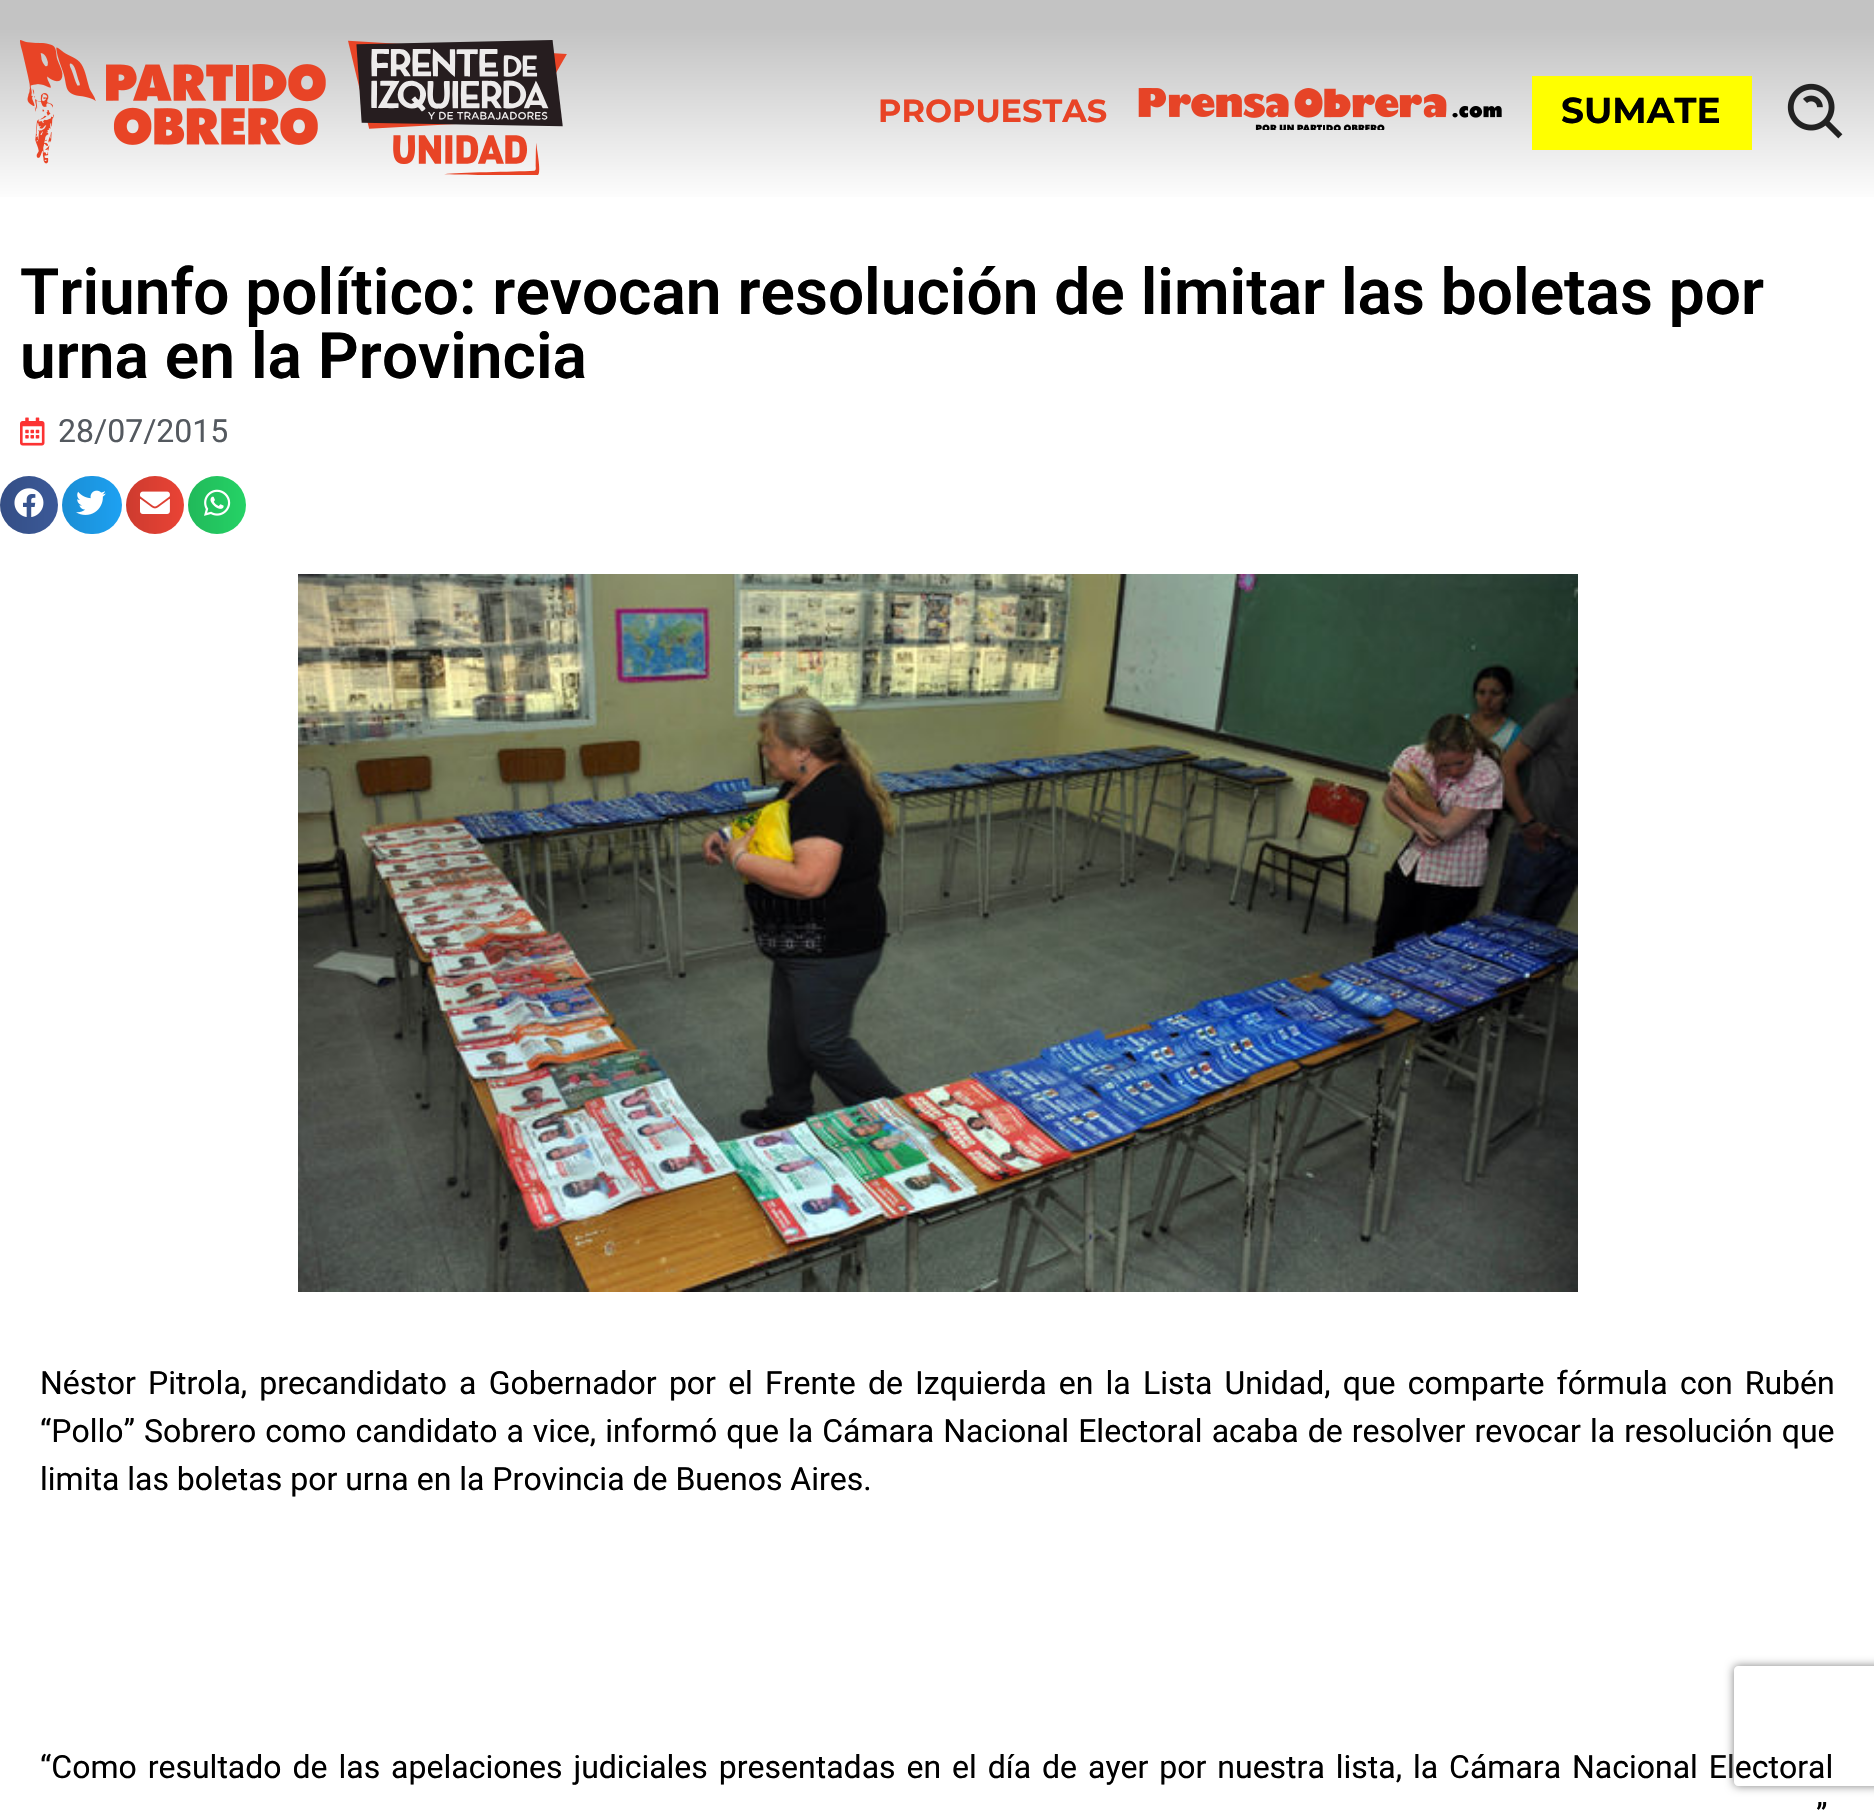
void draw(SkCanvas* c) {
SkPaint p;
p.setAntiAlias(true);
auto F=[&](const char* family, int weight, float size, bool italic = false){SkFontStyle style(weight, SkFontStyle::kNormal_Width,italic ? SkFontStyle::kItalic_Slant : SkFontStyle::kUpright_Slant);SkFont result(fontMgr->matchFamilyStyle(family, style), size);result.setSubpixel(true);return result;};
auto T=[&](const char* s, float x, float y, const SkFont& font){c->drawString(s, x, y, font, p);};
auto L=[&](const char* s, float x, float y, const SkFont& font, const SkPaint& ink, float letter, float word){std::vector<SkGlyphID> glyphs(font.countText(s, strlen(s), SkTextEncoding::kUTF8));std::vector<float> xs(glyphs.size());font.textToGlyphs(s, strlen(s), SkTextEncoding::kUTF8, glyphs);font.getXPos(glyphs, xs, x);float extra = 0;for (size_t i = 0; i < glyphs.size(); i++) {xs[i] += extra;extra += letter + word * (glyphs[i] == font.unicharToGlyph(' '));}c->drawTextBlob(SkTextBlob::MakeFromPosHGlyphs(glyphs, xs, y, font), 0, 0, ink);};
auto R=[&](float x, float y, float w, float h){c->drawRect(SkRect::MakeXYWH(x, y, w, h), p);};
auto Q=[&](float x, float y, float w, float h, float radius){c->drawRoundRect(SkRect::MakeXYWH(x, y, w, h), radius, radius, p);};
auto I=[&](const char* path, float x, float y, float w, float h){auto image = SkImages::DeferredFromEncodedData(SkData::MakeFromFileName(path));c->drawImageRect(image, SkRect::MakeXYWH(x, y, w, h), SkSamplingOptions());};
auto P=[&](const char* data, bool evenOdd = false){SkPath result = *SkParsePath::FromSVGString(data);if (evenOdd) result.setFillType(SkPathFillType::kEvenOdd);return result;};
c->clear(0xffffffff);
{
const SkColor colors[] = {0xffc3c3c3,0xffffffff};
const float stops[] = {.14,1};
const SkPoint ends[] = {{937,0}, {937,204}};
p.setShader(SkGradientShader::MakeLinear(ends, colors, stops, 2, SkTileMode::kClamp));
p.setAlpha(255);
}
R(0,0,1874,197);
I("1.png",20,40,76,124);
I("2.png",106,64,220,81);
I("3.png",348,40,219,135);
auto f1 = F("Montserrat",100,32);
p.setShader(nullptr);
p.setColor(0xffe84426);
T("PROPUESTAS",878,122,f1);
I("4.png",1138,88,364,42);
p.setColor(0xffffff00);
R(1532,76,220,74);
auto f2 = F("Montserrat",100,36);
p.setColor(0xff000000);
T("SUMATE",1561,123,f2);
I("5.png",1787,83,56,56);
auto f3 = F("Roboto",600,64);
T("Triunfo político: revocan resolución de limitar las boletas por",20,314,f3);
T("urna en la Provincia",20,378,f3);
I("6.png",20,417,25,29);
auto f4 = F("Roboto",400,32);
p.setColor(0xff54595f);
T("28/07/2015",58,442,f4);
p.setColor(0xff3b5998);
c->drawCircle(29,505,29,p);
{
const SkColor colors[] = {0x1f000000,0x00000000};
const float stops[] = {0,1};
const SkPoint ends[] = {{0,505}, {58,505}};
p.setShader(SkGradientShader::MakeLinear(ends, colors, stops, 2, SkTileMode::kClamp));
p.setAlpha(255);
}
c->drawCircle(29,505,29,p);
I("7.png",14,488,30,29);
p.setShader(nullptr);
p.setColor(0xff1da1f2);
Q(62,476,60,58,29);
{
const SkColor colors[] = {0x1f000000,0x00000000};
const float stops[] = {0,1};
const SkPoint ends[] = {{62,505}, {122,505}};
p.setShader(SkGradientShader::MakeLinear(ends, colors, stops, 2, SkTileMode::kClamp));
p.setAlpha(255);
}
Q(62,476,60,58,29);
I("8.png",76,490,30,25);
p.setShader(nullptr);
p.setColor(0xffea4335);
c->drawCircle(155,505,29,p);
{
const SkColor colors[] = {0x1f000000,0x00000000};
const float stops[] = {0,1};
const SkPoint ends[] = {{126,505}, {184,505}};
p.setShader(SkGradientShader::MakeLinear(ends, colors, stops, 2, SkTileMode::kClamp));
p.setAlpha(255);
}
c->drawCircle(155,505,29,p);
I("9.png",140,491,30,23);
p.setShader(nullptr);
p.setColor(0xff25d366);
c->drawCircle(217,505,29,p);
{
const SkColor colors[] = {0x1f000000,0x00000000};
const float stops[] = {0,1};
const SkPoint ends[] = {{188,505}, {246,505}};
p.setShader(SkGradientShader::MakeLinear(ends, colors, stops, 2, SkTileMode::kClamp));
p.setAlpha(255);
}
c->drawCircle(217,505,29,p);
I("10.png",204,489,27,27);
I("11.png",298,574,1280,718);
p.setShader(nullptr);
p.setColor(0xff000000);
L("Néstor Pitrola, precandidato a Gobernador por el Frente de Izquierda en la Lista Unidad, que comparte fórmula con Rubén",40,1394,f4,p,0,4.25);
L("“Pollo” Sobrero como candidato a vice, informó que la Cámara Nacional Electoral acaba de resolver revocar la resolución que",40,1442,f4,p,0,1.1);
T("limita las boletas por urna en la Provincia de Buenos Aires.",40,1490,f4);
L("“Como resultado de las apelaciones judiciales presentadas en el día de ayer por nuestra lista, la Cámara Nacional Electoral",40,1778,f4,p,0,3);
L("”",1816,1826,f4,p,0,1);
c->save();
c->clipPath(P("M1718 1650h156v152h-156zm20 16h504c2 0 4 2 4 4v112c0 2-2 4-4 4h-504c-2 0-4-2-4-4v-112c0-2 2-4 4-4z",true),true);
p.setColor(0xff808080);
p.setMaskFilter(SkMaskFilter::MakeBlur(kNormal_SkBlurStyle, 5));
c->drawRoundRect(SkRect::MakeXYWH(1734,1666,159,120),4,4,p);
p.setMaskFilter(nullptr);
c->restore();
}
